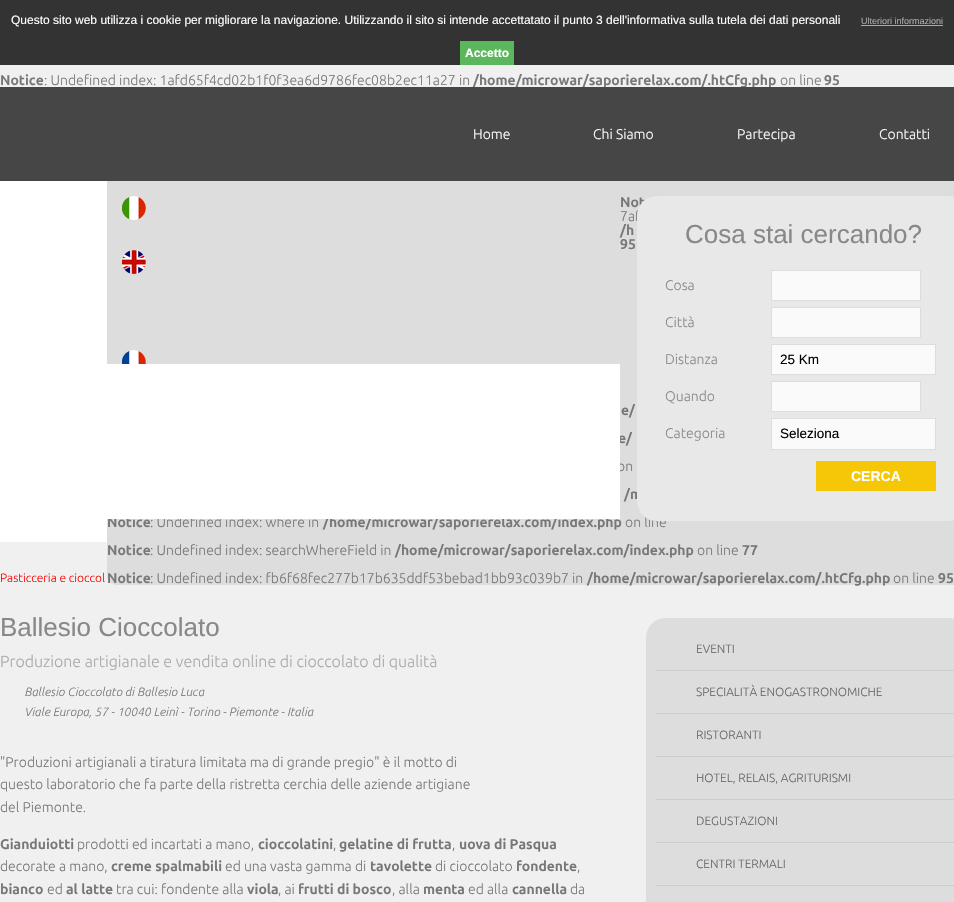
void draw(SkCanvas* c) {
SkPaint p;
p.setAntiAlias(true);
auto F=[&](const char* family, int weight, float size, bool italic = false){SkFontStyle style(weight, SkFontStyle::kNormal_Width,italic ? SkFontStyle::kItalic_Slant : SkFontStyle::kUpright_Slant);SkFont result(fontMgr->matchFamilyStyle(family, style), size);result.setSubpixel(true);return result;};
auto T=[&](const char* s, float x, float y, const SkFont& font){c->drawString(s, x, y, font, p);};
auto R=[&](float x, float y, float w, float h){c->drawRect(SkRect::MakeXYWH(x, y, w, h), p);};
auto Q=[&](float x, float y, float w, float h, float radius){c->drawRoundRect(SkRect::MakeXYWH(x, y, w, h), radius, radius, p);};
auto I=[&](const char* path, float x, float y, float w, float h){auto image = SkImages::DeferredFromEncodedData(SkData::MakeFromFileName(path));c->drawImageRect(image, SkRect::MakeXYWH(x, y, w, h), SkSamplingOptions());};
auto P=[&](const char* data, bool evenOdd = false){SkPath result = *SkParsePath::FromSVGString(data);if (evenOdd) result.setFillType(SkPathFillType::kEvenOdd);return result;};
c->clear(0xfff0f0f0);
p.setColor(0xff333333);
R(0,0,954,65);
auto f1 = F("Liberation Sans",400,12);
p.setColor(0xffffffff);
T("Questo sito web utilizza i cookie per migliorare la navigazione. Utilizzando il sito si intende accettatato il punto 3 dell'informativa sulla tutela dei dati personali",11,24,f1);
auto f2 = F("Liberation Sans",400,9);
p.setColor(0xffaaaaaa);
T("Ulteriori informazioni",861,24,f2);
R(861,25,82,1);
p.setColor(0xff5bb75b);
R(460,41,54,24);
auto f3 = F("Liberation Sans",700,12);
p.setColor(0xffffffff);
T("Accetto",465,57,f3);
auto f4 = F("Ubuntu",700,14);
p.setColor(0xff777777);
T("Notice",0,85,f4);
auto f5 = F("Ubuntu",300,14);
T(": Undefined index: 1afd65f4cd02b1f0f3ea6d9786fec08b2ec11a27 in",44,85,f5);
T("/home/microwar/saporierelax.com/.htCfg.php",473,85,f4);
T("on line",780,85,f5);
T("95",824,85,f4);
p.setColor(0xffffffff);
R(0,181,107,361);
p.setColor(0xff464646);
R(0,87,954,94);
p.setColor(0xffffffff);
T("Home",473,139,f5);
T("Chi Siamo",593,139,f5);
T("Partecipa",737,139,f5);
T("Contatti",879,139,f5);
p.setColor(0xffdddddd);
c->drawPath(P("M107 181h847v404h-837c-5.5 0-10-4.5-10-10z"),p);
p.setColor(0xff777777);
T("Not",620,207,f4);
T("7af",620,221,f5);
T("/h",620,235,f4);
T("/m",624,499,f4);
T("on line",625,527,f5);
p.setColor(0xffe9e8e8);
Q(637,196,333,325,20);
auto f6 = F("Liberation Sans",400,26);
p.setColor(0xff888888);
T("Cosa stai cercando?",685,243,f6);
T("Cosa",665,290,f5);
p.setColor(0xfffafafa);
c->drawRect(SkRect::MakeXYWH(771.5,270.5,149,30),p);
p.setStroke(true);
p.setStrokeWidth(1);
p.setColor(0xffdddddd);
c->drawRect(SkRect::MakeXYWH(771.5,270.5,149,30),p);
p.setStroke(false);
p.setColor(0xff888888);
T("Città",665,327,f5);
p.setColor(0xfffafafa);
c->drawRect(SkRect::MakeXYWH(771.5,307.5,149,30),p);
p.setStroke(true);
p.setColor(0xffdddddd);
c->drawRect(SkRect::MakeXYWH(771.5,307.5,149,30),p);
p.setStroke(false);
p.setColor(0xff888888);
T("Distanza",665,364,f5);
p.setColor(0xfffafafa);
c->drawRect(SkRect::MakeXYWH(771.5,344.5,164,30),p);
p.setStroke(true);
p.setColor(0xffdddddd);
c->drawRect(SkRect::MakeXYWH(771.5,344.5,164,30),p);
auto f7 = F("Liberation Sans",400,13.5);
p.setStroke(false);
p.setColor(0xff000000);
T("25 Km",780,364,f7);
p.setColor(0xff888888);
T("Quando",665,401,f5);
p.setColor(0xfffafafa);
c->drawRect(SkRect::MakeXYWH(771.5,381.5,149,30),p);
p.setStroke(true);
p.setColor(0xffdddddd);
c->drawRect(SkRect::MakeXYWH(771.5,381.5,149,30),p);
p.setStroke(false);
p.setColor(0xff888888);
T("Categoria",665,438,f5);
p.setColor(0xfffafafa);
c->drawRect(SkRect::MakeXYWH(771.5,418.5,164,31),p);
p.setStroke(true);
p.setColor(0xffdddddd);
c->drawRect(SkRect::MakeXYWH(771.5,418.5,164,31),p);
p.setStroke(false);
p.setColor(0xff000000);
T("Seleziona",780,438,f7);
p.setColor(0xfff6c707);
R(816,461,120,30);
auto f8 = F("Liberation Sans",700,14);
p.setColor(0xffffffff);
T("CERCA",851,481,f8);
p.setColor(0xff777777);
T("95",620,249,f4);
T("e/",618,443,f4);
T("on",617,471,f5);
T("Notice",107,527,f4);
T(": Undefined index: where in",150,527,f5);
T("/home/microwar/saporierelax.com/index.php",323,527,f4);
p.setColor(0xffffffff);
R(107,364,513,155);
I("1.png",122,196,24,24);
I("2.png",122,250,24,24);
I("3.png",122,350,24,14);
p.setColor(0xff777777);
T("e/",621,415,f4);
T("Notice",107,555,f4);
T(": Undefined index: searchWhereField in",150,555,f5);
T("/home/microwar/saporierelax.com/index.php",395,555,f4);
T("on line",697,555,f5);
T("77",742,555,f4);
T("Notice",107,583,f4);
T(": Undefined index: fb6f68fec277b17b635ddf53bebad1bb93c039b7 in",150,583,f5);
T("/home/microwar/saporierelax.com/.htCfg.php",587,583,f4);
T("on line",893,583,f5);
T("95",938,583,f4);
auto f9 = F("Ubuntu",300,12);
p.setColor(0xffff0000);
T("Pasticceria e cioccol",0,582,f9);
p.setColor(0xff888888);
T("Ballesio Cioccolato",0,636,f6);
auto f10 = F("Ubuntu",300,16);
p.setColor(0xffaaaaaa);
T("Produzione artigianale e vendita online di cioccolato di qualità",0,667,f10);
auto f11 = F("Ubuntu",300,12,true);
p.setColor(0xff777777);
T("Ballesio Cioccolato di Ballesio Luca",25,696,f11);
T("Viale Europa, 57 - 10040 Leinì - Torino - Piemonte - Italia",25,716,f11);
T("\"Produzioni artigianali a tiratura limitata ma di grande pregio\" è il motto di",0,767,f5);
T("questo laboratorio che fa parte della ristretta cerchia delle aziende artigiane",0,789,f5);
T("del Piemonte.",0,812,f5);
T("Gianduiotti",0,849,f4);
T("prodotti ed incartati a mano,",77,849,f5);
T("cioccolatini",258,849,f4);
T(",",333,849,f5);
T("gelatine di frutta",339,849,f4);
T(",",452,849,f5);
T("uova di Pasqua",459,849,f4);
T("decorate a mano,",0,871,f5);
T("creme spalmabili",111,871,f4);
T("ed una vasta gamma di",225,871,f5);
T("tavolette",370,871,f4);
T("di cioccolato",435,871,f5);
T("fondente",516,871,f4);
T(",",577,871,f5);
T("bianco",0,894,f4);
T("ed",47,894,f5);
T("al latte",66,894,f4);
T("tra cui: fondente alla",116,894,f5);
T("viola",247,894,f4);
T(", ai",278,894,f5);
T("frutti di bosco",298,894,f4);
T(", alla",392,894,f5);
T("menta",423,894,f4);
T("ed alla",468,894,f5);
T("cannella",512,894,f4);
T("da",570,894,f5);
p.setColor(0xffdddddd);
Q(646,618,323,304,20);
p.setColor(0xffcccccc);
R(656,670,298,1);
p.setColor(0xff666666);
T("EVENTI",696,653,f9);
p.setColor(0xffcccccc);
R(656,713,298,1);
p.setColor(0xff666666);
T("SPECIALITÀ ENOGASTRONOMICHE",696,696,f9);
p.setColor(0xffcccccc);
R(656,756,298,1);
p.setColor(0xff666666);
T("RISTORANTI",696,739,f9);
p.setColor(0xffcccccc);
R(656,799,298,1);
p.setColor(0xff666666);
T("HOTEL, RELAIS, AGRITURISMI",696,782,f9);
p.setColor(0xffcccccc);
R(656,842,298,1);
p.setColor(0xff666666);
T("DEGUSTAZIONI",696,825,f9);
p.setColor(0xffcccccc);
R(656,885,298,1);
p.setColor(0xff666666);
T("CENTRI TERMALI",696,868,f9);
}
